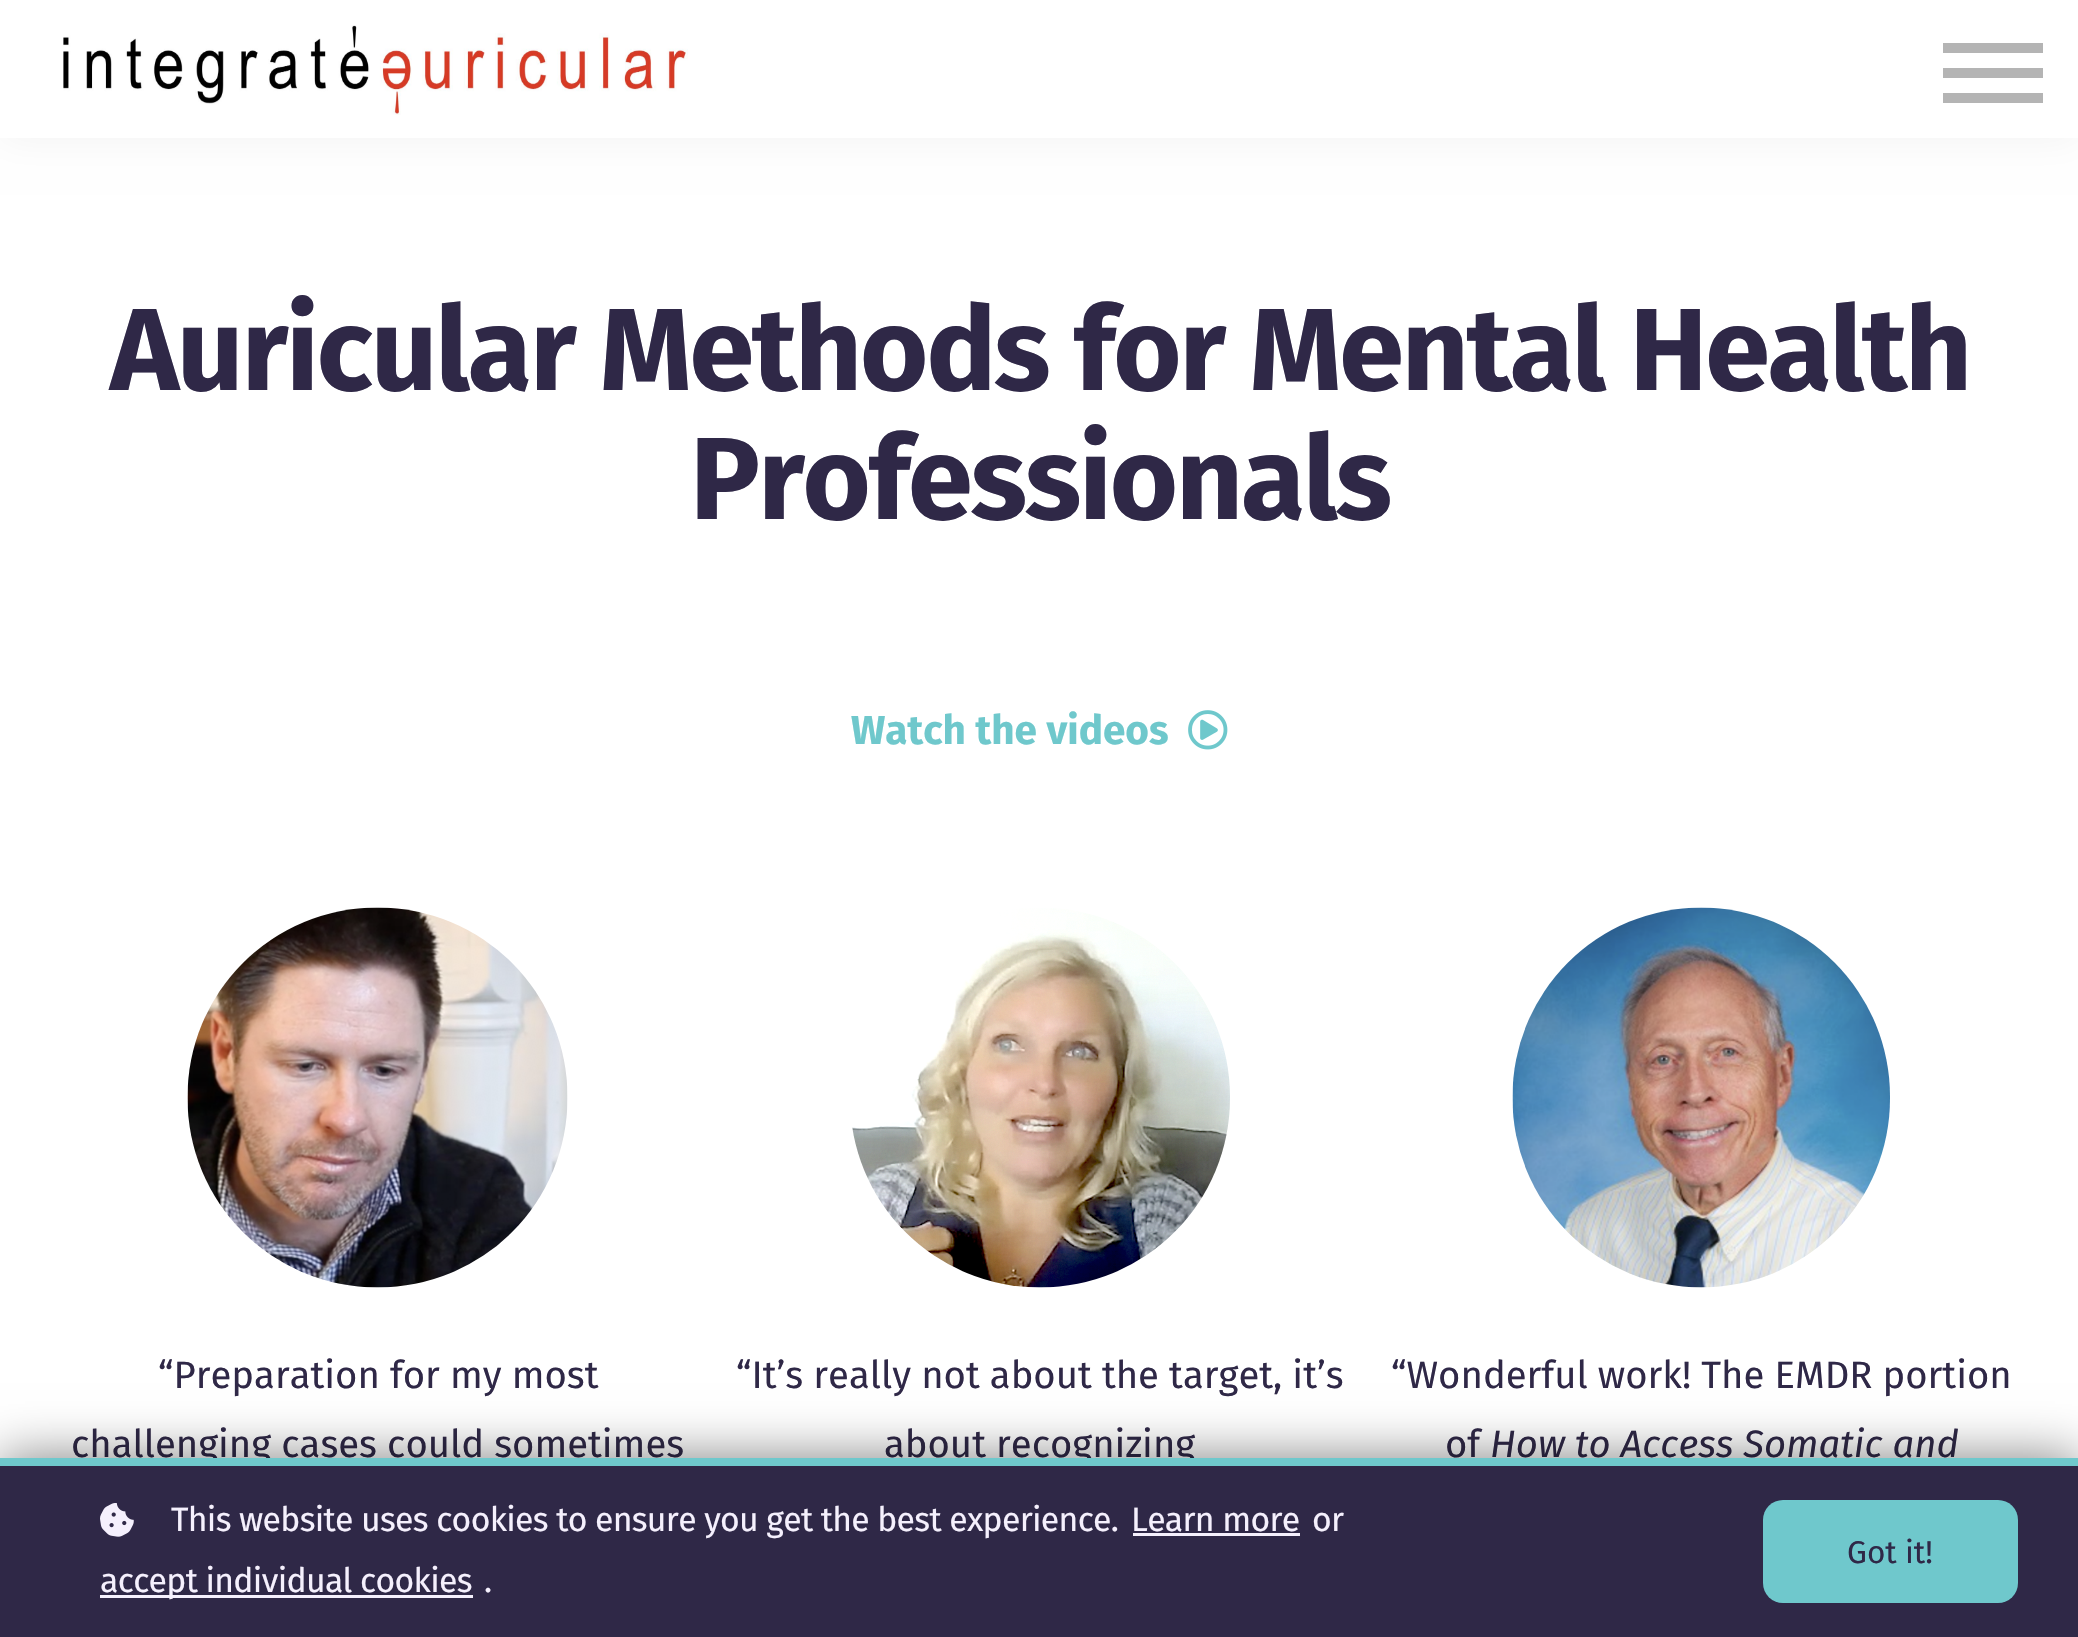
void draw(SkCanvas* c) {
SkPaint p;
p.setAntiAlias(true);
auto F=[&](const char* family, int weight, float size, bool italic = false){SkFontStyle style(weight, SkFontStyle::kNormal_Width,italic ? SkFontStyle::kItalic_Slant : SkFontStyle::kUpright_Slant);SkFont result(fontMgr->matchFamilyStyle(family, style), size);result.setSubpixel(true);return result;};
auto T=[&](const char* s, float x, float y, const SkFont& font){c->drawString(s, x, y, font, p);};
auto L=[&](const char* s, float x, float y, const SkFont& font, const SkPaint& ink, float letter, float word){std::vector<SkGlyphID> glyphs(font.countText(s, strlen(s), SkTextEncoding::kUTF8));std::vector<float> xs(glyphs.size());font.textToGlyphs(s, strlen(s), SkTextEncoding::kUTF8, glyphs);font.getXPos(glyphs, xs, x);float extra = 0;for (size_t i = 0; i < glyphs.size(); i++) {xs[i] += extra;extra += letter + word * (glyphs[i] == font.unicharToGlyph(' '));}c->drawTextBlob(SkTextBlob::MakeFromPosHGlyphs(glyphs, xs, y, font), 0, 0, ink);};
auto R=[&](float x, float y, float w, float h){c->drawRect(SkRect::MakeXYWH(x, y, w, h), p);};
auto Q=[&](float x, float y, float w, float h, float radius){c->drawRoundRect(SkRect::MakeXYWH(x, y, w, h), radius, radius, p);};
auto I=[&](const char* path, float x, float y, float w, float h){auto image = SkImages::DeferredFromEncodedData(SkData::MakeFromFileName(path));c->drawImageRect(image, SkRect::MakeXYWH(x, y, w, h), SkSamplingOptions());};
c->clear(0xffffffff);
p.setColor(0x0d000000);
p.setMaskFilter(SkMaskFilter::MakeBlur(kNormal_SkBlurStyle, 19));
c->drawRect(SkRect::MakeXYWH(0,0,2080,138),p);
p.setMaskFilter(nullptr);
p.setColor(0xffffffff);
R(0,0,2078,138);
I("1.png",63,25,625,90);
p.setColor(0xffb4b4b4);
R(1943,93,100,10);
R(1943,43,100,10);
R(1943,68,100,10);
auto f1 = F("Fira Sans",700,117);
p.setColor(0xff2f2847);
L("Auricular Methods for Mental Health",110,390,f1,p,-2.25,0);
L("Professionals",690,519,f1,p,-2.25,0);
auto f2 = F("Fira Sans",700,40.5);
p.setColor(0xff6fc8cc);
T("Watch the videos",851,744,f2);
I("2.png",1188,710,40,40);
I("3.png",187,907,381,381);
auto f3 = F("Fira Sans",400,38.25);
p.setColor(0xff2f2847);
T("“Preparation for my most",158,1388,f3);
T("challenging cases could sometimes",71,1457,f3);
I("4.png",852,908,378,380);
T("“It’s really not about the target, it’s",736,1388,f3);
T("about recognizing",884,1457,f3);
I("5.png",1512,907,378,381);
T("“Wonderful work! The EMDR portion",1391,1388,f3);
T("of",1445,1457,f3);
auto f4 = F("Fira Sans",400,38.25,true);
T("How to Access Somatic and",1490,1457,f4);
p.setColor(0x80000000);
p.setMaskFilter(SkMaskFilter::MakeBlur(kNormal_SkBlurStyle, 25));
c->drawRect(SkRect::MakeXYWH(0,1458,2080,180),p);
p.setMaskFilter(nullptr);
p.setColor(0xff2f2847);
R(0,1466,2078,171);
p.setColor(0xff6fc8cc);
R(0,1458,2078,8);
I("6.png",100,1503,34,34);
auto f5 = F("Fira Sans",400,33.75);
p.setColor(0xfff5f0fd);
L("This website uses cookies to ensure you get the best experience.",171,1531,f5,p,-.68,0);
L("Learn more",1131,1531,f5,p,-.68,0);
R(1133,1533,167,3);
L("or",1312,1531,f5,p,-.68,0);
R(100,1595,373,3);
L("accept individual cookies",100,1592,f5,p,-.68,0);
L(".",484,1592,f5,p,-.68,0);
p.setColor(0xff6fc8cc);
Q(1763,1500,255,103,20);
auto f6 = F("Fira Sans",400,31.5);
p.setColor(0xff2f2847);
T("Got it!",1847,1563,f6);
}
